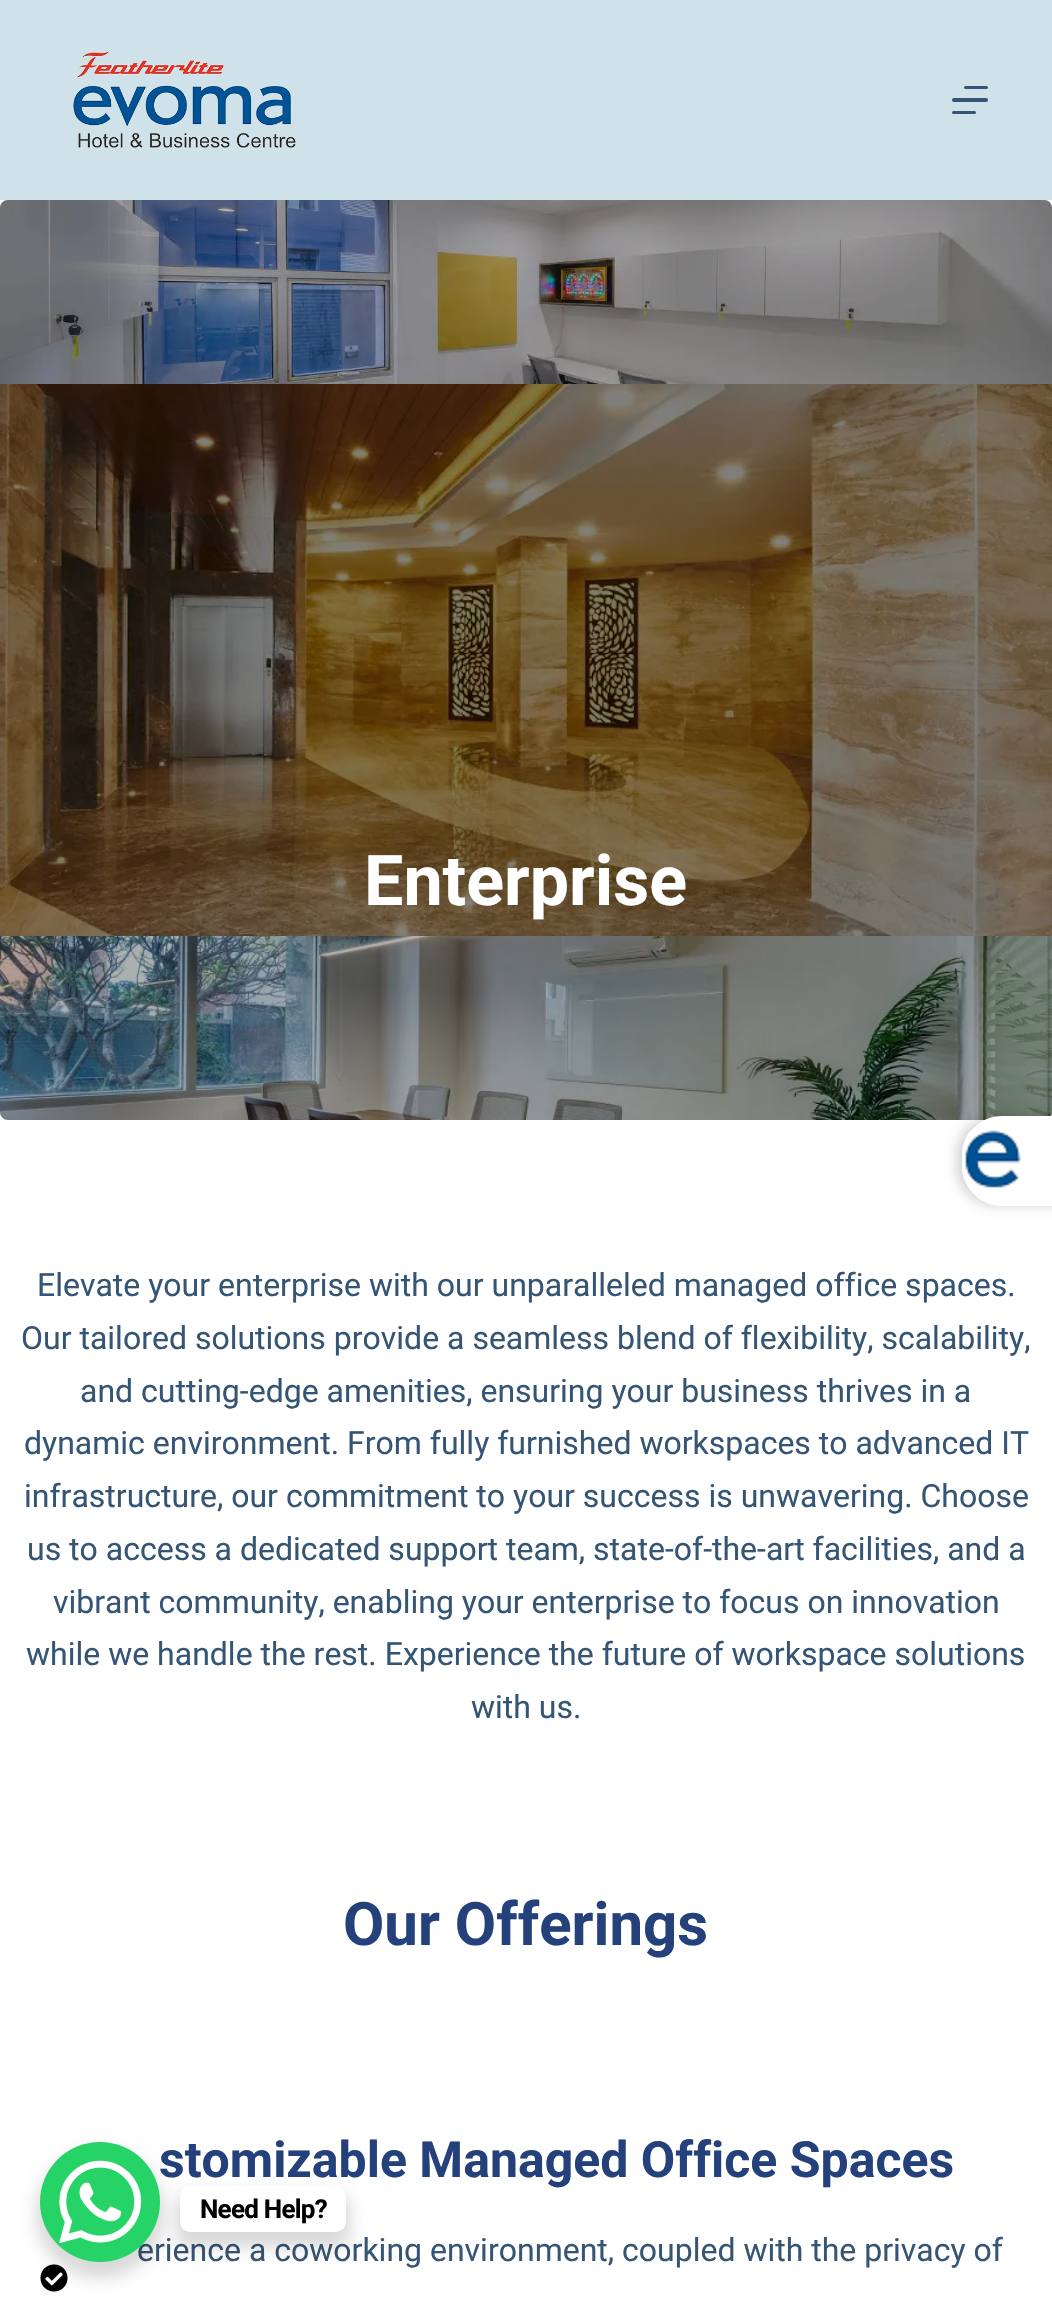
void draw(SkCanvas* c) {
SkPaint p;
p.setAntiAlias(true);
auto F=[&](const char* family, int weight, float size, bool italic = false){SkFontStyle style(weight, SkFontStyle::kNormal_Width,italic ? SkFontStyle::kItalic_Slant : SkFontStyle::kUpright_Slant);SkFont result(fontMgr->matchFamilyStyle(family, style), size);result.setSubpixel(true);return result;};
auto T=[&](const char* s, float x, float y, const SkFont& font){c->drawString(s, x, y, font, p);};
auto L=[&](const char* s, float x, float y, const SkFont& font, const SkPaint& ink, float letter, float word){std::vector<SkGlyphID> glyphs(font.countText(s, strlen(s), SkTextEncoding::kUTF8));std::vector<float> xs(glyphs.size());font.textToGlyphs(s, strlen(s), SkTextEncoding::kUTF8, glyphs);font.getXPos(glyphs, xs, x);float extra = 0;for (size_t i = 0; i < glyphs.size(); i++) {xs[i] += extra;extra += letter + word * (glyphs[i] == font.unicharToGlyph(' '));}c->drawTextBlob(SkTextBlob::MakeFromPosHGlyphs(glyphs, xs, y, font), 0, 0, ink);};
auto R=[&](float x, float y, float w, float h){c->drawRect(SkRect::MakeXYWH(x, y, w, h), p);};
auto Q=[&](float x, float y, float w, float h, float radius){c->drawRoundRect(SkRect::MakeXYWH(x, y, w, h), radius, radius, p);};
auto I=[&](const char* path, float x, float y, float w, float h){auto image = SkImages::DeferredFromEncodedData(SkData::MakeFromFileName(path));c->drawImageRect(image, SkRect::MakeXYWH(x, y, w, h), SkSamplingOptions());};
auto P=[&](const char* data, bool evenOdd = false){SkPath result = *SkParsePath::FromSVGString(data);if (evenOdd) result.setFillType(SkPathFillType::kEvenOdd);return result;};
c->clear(0xffffffff);
p.setColor(0xffd0e2e9);
R(0,0,1052,200);
I("1.png",73,51,223,97);
p.setColor(0xff355575);
Q(964,86,24,3,1.5);
Q(952,98,36,4,2);
Q(952,111,24,3,1.5);
I("2.png",0,200,1052,184);
p.setColor(0x4d000000);
c->drawPath(P("M8 200h1036c4.5 0 8 3.5 8 8v176h-1052v-176c0-4.5 3.5-8 8-8z"),p);
I("3.png",0,384,1052,552);
auto f1 = F("Roboto",700,70);
p.setColor(0xffffffff);
T("Enterprise",364,905,f1);
I("4.png",0,936,1052,184);
p.setColor(0x4d000000);
c->drawPath(P("M0 936h1052v176c0 4.5-3.5 8-8 8h-1036c-4.5 0-8-3.5-8-8z"),p);
auto f2 = F("Roboto",400,32);
p.setColor(0xff355575);
T("Elevate your enterprise with our unparalleled managed office spaces.",37,1296,f2);
T("Our tailored solutions provide a seamless blend of flexibility, scalability,",21,1349,f2);
T("and cutting-edge amenities, ensuring your business thrives in a",80,1402,f2);
T("dynamic environment. From fully furnished workspaces to advanced IT",24,1454,f2);
T("infrastructure, our commitment to your success is unwavering. Choose",24,1507,f2);
T("us to access a dedicated support team, state-of-the-art facilities, and a",27,1560,f2);
T("vibrant community, enabling your enterprise to focus on innovation",53,1613,f2);
T("while we handle the rest. Experience the future of workspace solutions",26,1665,f2);
T("with us.",471,1718,f2);
auto f3 = F("Roboto",700,60);
p.setColor(0xff24417c);
T("Our Offerings",343,1945,f3);
auto f4 = F("Roboto",700,50);
T("stomizable Managed Office Spaces",159,2177,f4);
p.setColor(0xff355575);
T("erience a coworking environment, coupled with the privacy of",137,2261,f2);
I("5.png",40,2264,28,28);
p.setColor(0x29000000);
p.setMaskFilter(SkMaskFilter::MakeBlur(kNormal_SkBlurStyle, 6));
c->drawRoundRect(SkRect::MakeXYWH(956,1116,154,90),40,40,p);
p.setMaskFilter(nullptr);
p.setColor(0xffffffff);
c->drawPath(P("M1002 1116h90v90h-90c-22 0-40-18-40-40v-10c0-22 18-40 40-40z"),p);
I("6.png",962,1130,59,58);
p.setColor(0x26000000);
p.setMaskFilter(SkMaskFilter::MakeBlur(kNormal_SkBlurStyle, 8));
c->drawRoundRect(SkRect::MakeXYWH(36,2150,128,128),64,64,p);
p.setMaskFilter(nullptr);
p.setColor(0xff25d366);
c->drawCircle(100,2202,60,p);
I("7.png",59,2160,83,84);
p.setColor(0x26000000);
p.setMaskFilter(SkMaskFilter::MakeBlur(kNormal_SkBlurStyle, 8));
c->drawRoundRect(SkRect::MakeXYWH(176,2194,174,54),14,14,p);
p.setMaskFilter(nullptr);
p.setColor(0xffffffff);
Q(180,2186,166,46,10);
auto f5 = F("Roboto",700,26);
p.setColor(0xff000000);
L("Need Help?",200,2218,f5,p,-.75,0);
}
